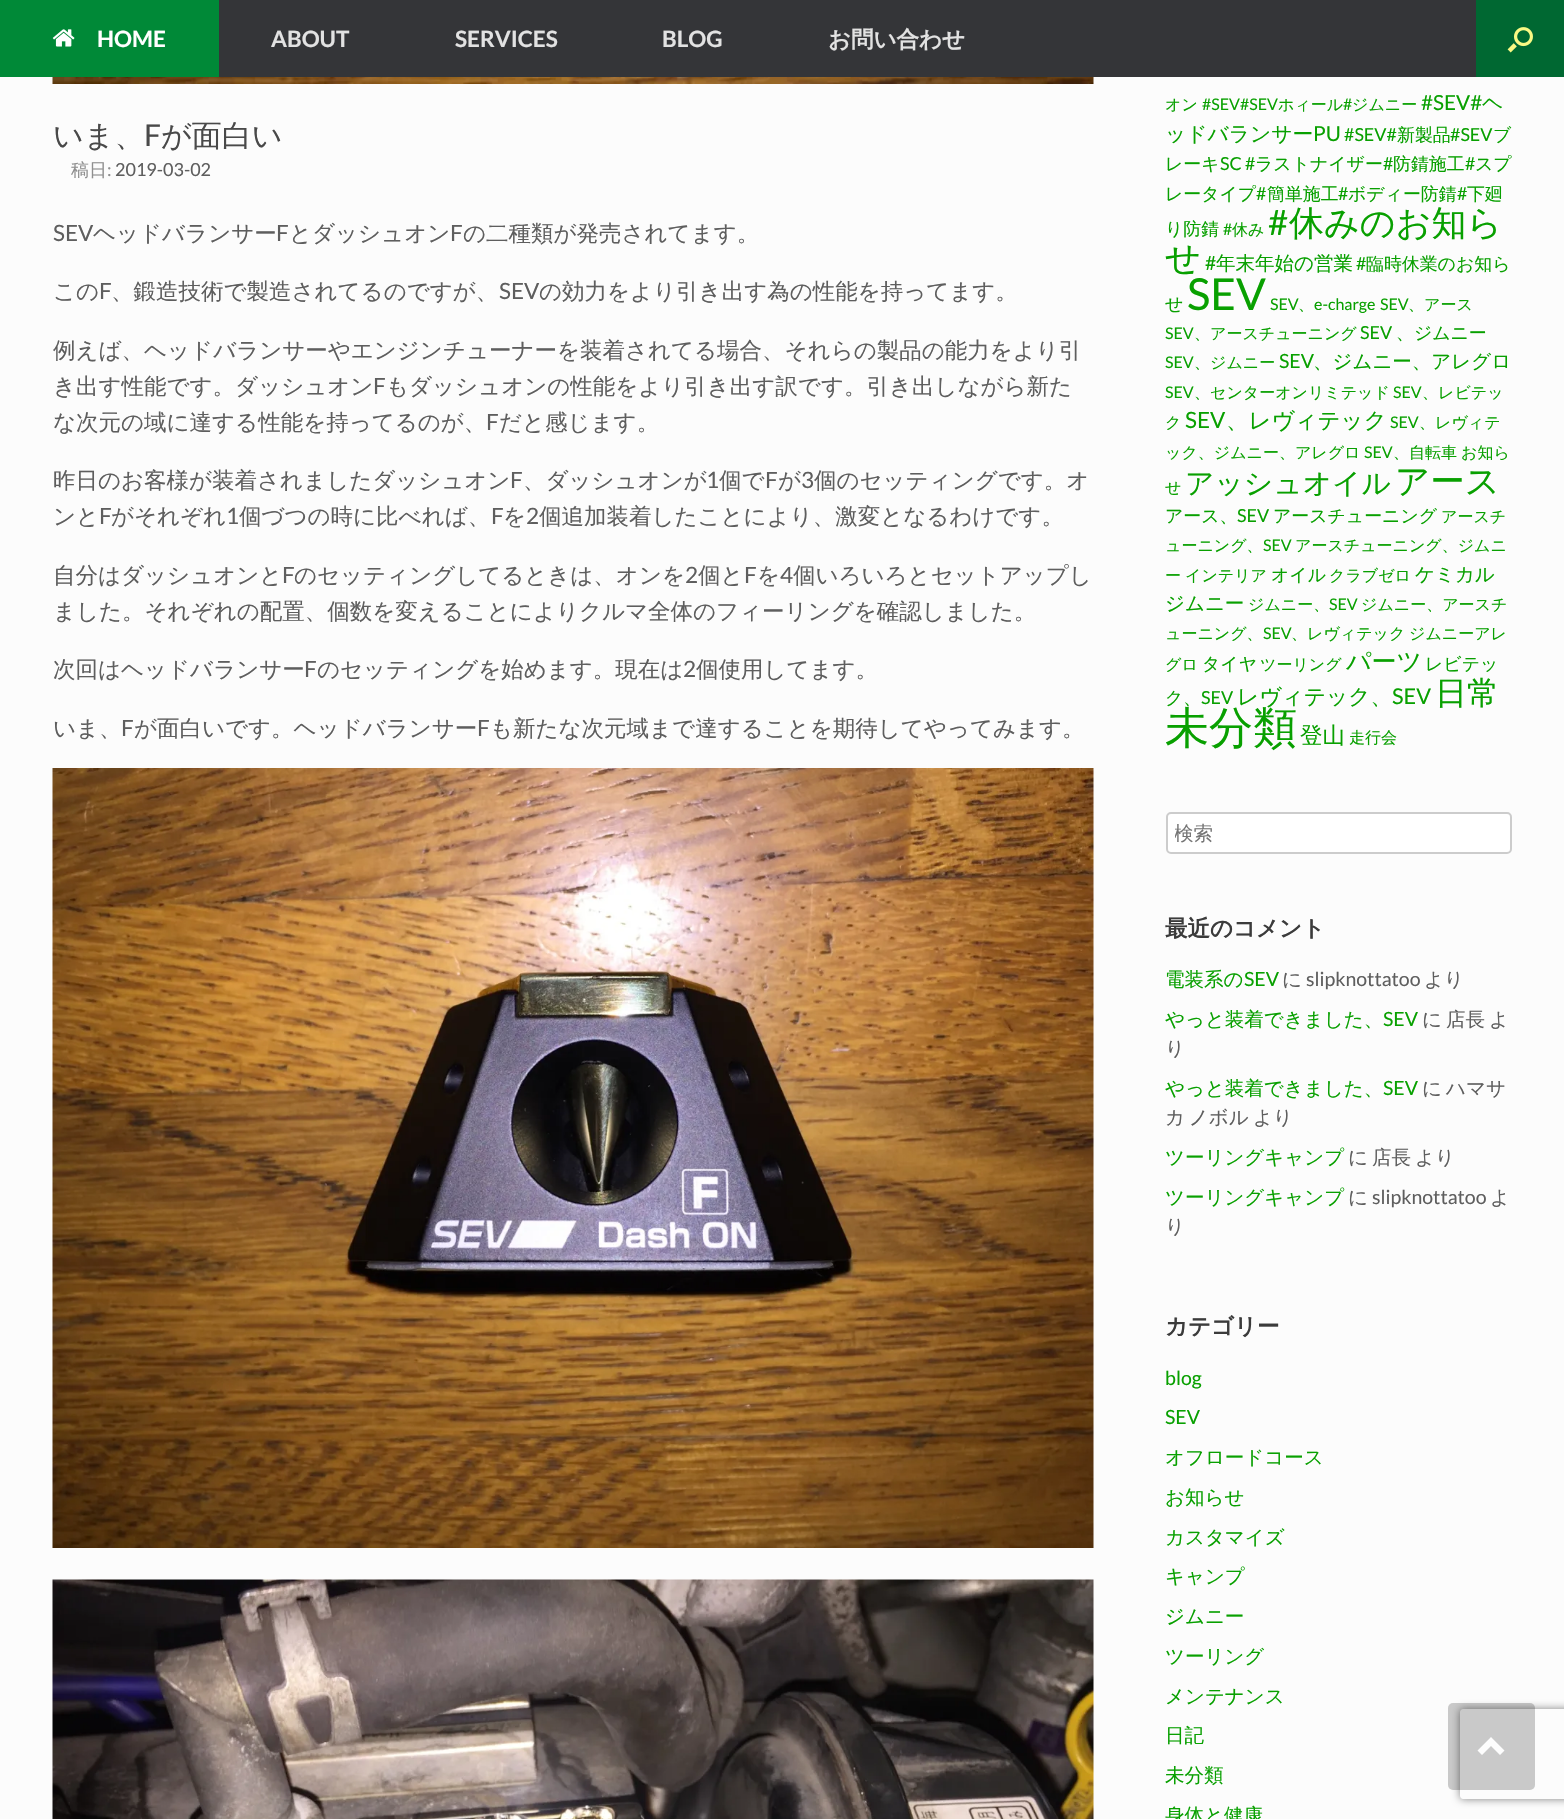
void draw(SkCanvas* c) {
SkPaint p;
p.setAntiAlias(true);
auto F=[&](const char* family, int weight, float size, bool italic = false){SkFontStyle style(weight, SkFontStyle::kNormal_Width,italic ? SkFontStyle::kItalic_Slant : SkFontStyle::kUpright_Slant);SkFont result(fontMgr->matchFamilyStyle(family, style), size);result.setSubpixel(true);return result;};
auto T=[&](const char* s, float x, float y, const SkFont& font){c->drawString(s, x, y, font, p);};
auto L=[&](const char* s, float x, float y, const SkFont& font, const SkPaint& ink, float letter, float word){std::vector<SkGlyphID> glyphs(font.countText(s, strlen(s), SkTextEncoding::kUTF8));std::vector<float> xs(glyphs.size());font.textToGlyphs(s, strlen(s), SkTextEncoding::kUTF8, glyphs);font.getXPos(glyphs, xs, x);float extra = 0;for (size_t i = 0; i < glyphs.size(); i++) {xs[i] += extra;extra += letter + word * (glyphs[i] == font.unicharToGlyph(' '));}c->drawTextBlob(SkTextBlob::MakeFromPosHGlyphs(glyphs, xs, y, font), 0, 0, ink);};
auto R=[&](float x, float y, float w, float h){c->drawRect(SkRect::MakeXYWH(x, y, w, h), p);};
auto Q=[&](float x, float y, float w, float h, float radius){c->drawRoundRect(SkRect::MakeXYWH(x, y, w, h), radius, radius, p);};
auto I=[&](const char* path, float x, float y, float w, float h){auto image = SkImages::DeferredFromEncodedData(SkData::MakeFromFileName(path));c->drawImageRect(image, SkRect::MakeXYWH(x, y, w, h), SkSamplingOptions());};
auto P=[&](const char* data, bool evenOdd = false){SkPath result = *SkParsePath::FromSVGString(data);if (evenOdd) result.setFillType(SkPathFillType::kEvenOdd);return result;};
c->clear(0xfffcfcfc);
p.setColor(0xff343538);
R(219,0,1257,77);
p.setColor(0xff008937);
R(0,0,219,77);
I("1.png",52,29,23,18);
auto f1 = F("Lato",700,22.5);
p.setColor(0xffffffff);
T("HOME",97,47,f1);
p.setColor(0xffe2e2e2);
T("ABOUT",271,47,f1);
T("SERVICES",455,47,f1);
T("BLOG",662,47,f1);
auto f2 = F("WenQuanYi Zen Hei",700,22.5);
T("お問い合わせ",828,47,f2);
p.setColor(0xff006832);
R(1476,0,88,77);
I("2.png",1507,27,26,26);
I("3.png",52,77,1042,7);
auto f3 = F("WenQuanYi Zen Hei",500,30);
p.setColor(0xff494949);
T("いま、",53,146,f3);
auto f4 = F("Lato",400,30);
T("F",144,146,f4);
T("が面白い",161,146,f3);
auto f5 = F("Noto Sans",400,18);
p.setColor(0xff8f8f8f);
T("投",53,176,f5);
auto f6 = F("WenQuanYi Zen Hei",500,18);
T("稿日",71,176,f6);
auto f7 = F("Lato",400,18);
T(":",107,176,f7);
p.setColor(0xff5e5e5e);
T("2019-03-02",115,176,f7);
auto f8 = F("Lato",400,22.5);
T("SEV",53,241,f8);
auto f9 = F("WenQuanYi Zen Hei",500,22.5);
T("ヘッドバランサー",93,241,f9);
T("F",276,241,f8);
T("とダッシュオン",289,241,f9);
T("F",450,241,f8);
T("の二種類が発売されてます。",463,241,f9);
T("この",53,299,f9);
T("F",99,299,f8);
T("、鍛造技術で製造されてるのですが、",111,299,f9);
T("SEV",499,299,f8);
T("の効力をより引き出す為の性能を持ってます。",539,299,f9);
T("例えば、ヘッドバランサーやエンジンチューナーを装着されてる場合、それらの製品の能力をより引",53,358,f9);
T("き出す性能です。ダッシュオン",53,394,f9);
T("F",373,394,f8);
T("もダッシュオンの性能をより引き出す訳です。引き出しながら新た",386,394,f9);
T("な次元の域に達する性能を持ってるのが、",53,430,f9);
T("F",486,430,f8);
T("だと感じます。",499,430,f9);
T("昨日のお客様が装着されましたダッシュオン",53,488,f9);
T("F",510,488,f8);
T("、ダッシュオンが",523,488,f9);
T("1",706,488,f8);
T("個で",719,488,f9);
T("F",765,488,f8);
T("が",778,488,f9);
T("3",801,488,f8);
T("個のセッティングです。オ",814,488,f9);
T("ンと",53,524,f9);
T("F",99,524,f8);
T("がそれぞれ",111,524,f9);
T("1",226,524,f8);
T("個づつの時に比べれば、",239,524,f9);
T("F",491,524,f8);
T("を",503,524,f9);
T("2",526,524,f8);
T("個追加装着したことにより、激変となるわけです。",539,524,f9);
T("自分はダッシュオンと",53,583,f9);
T("F",282,583,f8);
T("のセッティングしてるときは、オンを",294,583,f9);
T("2",685,583,f8);
T("個と",698,583,f9);
T("F",744,583,f8);
T("を",757,583,f9);
T("4",780,583,f8);
T("個いろいろとセットアップし",793,583,f9);
T("ました。それぞれの配置、個数を変えることによりクルマ全体のフィーリングを確認しました。",53,619,f9);
T("次回はヘッドバランサー",53,677,f9);
T("F",304,677,f8);
T("のセッティングを始めます。現在は",317,677,f9);
T("2",683,677,f8);
T("個使用してます。",696,677,f9);
T("いま、",53,736,f9);
T("F",121,736,f8);
T("が面白いです。ヘッドバランサー",134,736,f9);
T("F",477,736,f8);
T("も新たな次元域まで達することを期待してやってみます。",490,736,f9);
I("4.png",52,768,1042,780);
I("5.png",52,1579,1042,240);
auto f10 = F("WenQuanYi Zen Hei",500,16);
p.setColor(0xff08a000);
T("オン",1165,110,f10);
auto f11 = F("Lato",400,16);
T("#SEV#SEV",1202,110,f11);
T("ホィール",1278,110,f10);
T("#",1343,110,f11);
T("ジムニー",1352,110,f10);
auto f12 = F("Lato",400,20.75);
T("#SEV#",1421,110,f12);
auto f13 = F("WenQuanYi Zen Hei",500,20.75);
T("ヘ",1482,110,f13);
T("ッドバランサー",1165,141,f13);
T("PU",1313,141,f12);
auto f14 = F("Lato",400,17.9);
T("#SEV#",1344,141,f14);
auto f15 = F("WenQuanYi Zen Hei",500,17.9);
T("新製品",1397,141,f15);
T("#SEV",1450,141,f14);
T("ブ",1493,141,f15);
T("レーキ",1165,170,f15);
T("SC",1220,170,f14);
T("#",1245,170,f14);
T("ラストナイザー",1255,170,f15);
T("#",1383,170,f14);
T("防錆施工",1393,170,f15);
T("#",1465,170,f14);
T("スプ",1475,170,f15);
T("レータイプ",1165,200,f15);
T("#",1256,200,f14);
T("簡単施工",1267,200,f15);
T("#",1338,200,f14);
T("ボディー防錆",1348,200,f15);
T("#",1457,200,f14);
T("下廻",1467,200,f15);
T("り防錆",1165,235,f15);
T("#",1223,235,f11);
T("休み",1232,235,f10);
auto f16 = F("Lato",400,35);
T("#",1268,235,f16);
auto f17 = F("WenQuanYi Zen Hei",500,35);
T("休みのお知ら",1289,235,f17);
T("せ",1165,270,f17);
auto f18 = F("Lato",400,19.5);
T("#",1205,270,f18);
auto f19 = F("WenQuanYi Zen Hei",500,19.5);
T("年末年始の営業",1216,270,f19);
T("#",1356,270,f14);
T("臨時休業のお知ら",1366,270,f15);
T("せ",1165,310,f15);
auto f20 = F("Lato",400,44);
T("SEV",1187,310,f20);
T("SEV",1270,310,f11);
T("、",1298,310,f10);
T("e-charge",1314,310,f11);
T("SEV",1380,310,f11);
T("、アース",1408,310,f10);
T("SEV",1165,339,f11);
T("、アースチューニング",1194,339,f10);
T("SEV",1360,339,f14);
T("、ジムニー",1396,339,f15);
T("SEV",1165,368,f11);
T("、ジムニー",1194,368,f10);
T("SEV",1279,368,f18);
T("、ジムニー、アレグロ",1313,368,f19);
T("SEV",1165,398,f11);
T("、センターオンリミテッド",1194,398,f10);
T("SEV",1393,398,f11);
T("、レビテッ",1422,398,f10);
T("ク",1165,428,f10);
T("SEV",1185,428,f8);
T("、レヴィテック",1226,428,f9);
T("SEV",1390,428,f11);
T("、レヴィテ",1419,428,f10);
T("ック、ジムニー、アレグロ",1165,458,f10);
T("SEV",1364,458,f11);
T("、自転車",1393,458,f10);
T("お知ら",1461,458,f10);
T("せ",1165,493,f10);
auto f21 = F("WenQuanYi Zen Hei",500,28.75);
T("アッシュオイル",1185,493,f21);
auto f22 = F("WenQuanYi Zen Hei",500,34.5);
T("アース",1395,493,f22);
T("アース、",1165,522,f15);
T("SEV",1237,522,f14);
T("アースチューニング",1273,522,f15);
T("アースチ",1441,522,f10);
T("ューニング、",1165,551,f10);
T("SEV",1263,551,f11);
T("アースチューニング、ジムニ",1295,551,f10);
T("ー",1165,581,f10);
T("インテリア",1185,581,f10);
T("オイル",1271,581,f15);
T("クラブゼロ",1329,581,f10);
T("ケミカル",1415,581,f19);
T("ジムニー",1165,610,f19);
T("ジムニー、",1248,610,f10);
T("SEV",1329,610,f11);
T("ジムニー、アースチ",1361,610,f10);
T("ューニング、",1165,639,f10);
T("SEV",1263,639,f11);
T("、レヴィテック",1291,639,f10);
T("ジムニーアレ",1409,639,f10);
T("グロ",1165,670,f10);
T("タイヤ",1202,670,f15);
T("ツーリング",1260,670,f10);
auto f23 = F("WenQuanYi Zen Hei",500,25);
T("パーツ",1346,670,f23);
T("レビテッ",1425,670,f15);
T("ク、",1165,704,f15);
T("SEV",1201,704,f14);
auto f24 = F("WenQuanYi Zen Hei",500,21.75);
T("レヴィテック、",1237,704,f24);
auto f25 = F("Lato",400,21.75);
T("SEV",1392,704,f25);
auto f26 = F("WenQuanYi Zen Hei",500,32);
T("日常",1435,704,f26);
auto f27 = F("WenQuanYi Zen Hei",500,44);
T("未分類",1165,743,f27);
T("登山",1300,743,f9);
T("走行会",1349,743,f10);
p.setColor(0xffffffff);
c->drawRoundRect(SkRect::MakeXYWH(1167,813,344,40),4,4,p);
p.setStroke(true);
p.setStrokeWidth(2);
p.setColor(0xffcccccc);
c->drawRoundRect(SkRect::MakeXYWH(1167,813,344,40),4,4,p);
c->save();
c->clipRect(SkRect::MakeXYWH(1175,821,328,27));
p.setStroke(false);
p.setColor(0xff757575);
T("検索",1174,840,f19);
c->restore();
p.setColor(0xff3b3b3b);
T("最近のコメント",1165,936,f2);
p.setColor(0xff08a000);
T("電装系の",1165,986,f19);
T("SEV",1244,986,f18);
p.setColor(0xff5e5e5e);
T("に",1282,986,f19);
T("slipknottatoo",1306,986,f18);
T("より",1424,986,f19);
p.setColor(0xff08a000);
T("やっと装着できました、",1165,1026,f19);
T("SEV",1383,1026,f18);
p.setColor(0xff5e5e5e);
T("に",1422,1026,f19);
T("店長",1446,1026,f19);
T("よ",1489,1026,f19);
T("り",1165,1055,f19);
p.setColor(0xff08a000);
T("やっと装着できました、",1165,1095,f19);
T("SEV",1383,1095,f18);
p.setColor(0xff5e5e5e);
T("に",1422,1095,f19);
T("ハマサ",1446,1095,f19);
L("カ ノボル",1165,1124,f19,p,0,-2);
T("より",1253,1124,f19);
p.setColor(0xff08a000);
T("ツーリングキャンプ",1165,1164,f19);
p.setColor(0xff5e5e5e);
T("に",1348,1164,f19);
T("店長",1372,1164,f19);
T("より",1415,1164,f19);
p.setColor(0xff08a000);
T("ツーリングキャンプ",1165,1204,f19);
p.setColor(0xff5e5e5e);
T("に",1348,1204,f19);
T("slipknottatoo",1372,1204,f18);
T("よ",1490,1204,f19);
T("り",1165,1233,f19);
p.setColor(0xff3b3b3b);
T("カテゴリー",1165,1334,f2);
p.setColor(0xff08a000);
T("blog",1165,1385,f18);
T("SEV",1165,1424,f18);
T("オフロードコース",1165,1464,f19);
T("お知らせ",1165,1504,f19);
T("カスタマイズ",1165,1544,f19);
T("キャンプ",1165,1583,f19);
T("ジムニー",1165,1623,f19);
T("ツーリング",1165,1663,f19);
T("メンテナンス",1165,1703,f19);
T("日記",1165,1742,f19);
T("未分類",1165,1782,f19);
T("身体と健康",1165,1822,f19);
c->save();
c->clipPath(P("M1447 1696h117v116h-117zm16 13h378c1.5 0 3 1.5 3 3v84c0 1.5-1.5 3-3 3h-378c-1.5 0-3-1.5-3-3v-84c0-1.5 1.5-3 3-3z",true),true);
p.setColor(0xff808080);
p.setMaskFilter(SkMaskFilter::MakeBlur(kNormal_SkBlurStyle, 4));
c->drawRoundRect(SkRect::MakeXYWH(1460,1709,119,90),3,3,p);
p.setMaskFilter(nullptr);
c->restore();
p.setColor(0x33000000);
Q(1448,1703,87,87,5);
p.setColor(0xfffdfdfd);
c->drawPath(P("M1504.5 1750.5l-13.5-13.5l-13.5 13.5l4.5 4.5l9-9l9 9z"),p);
}
